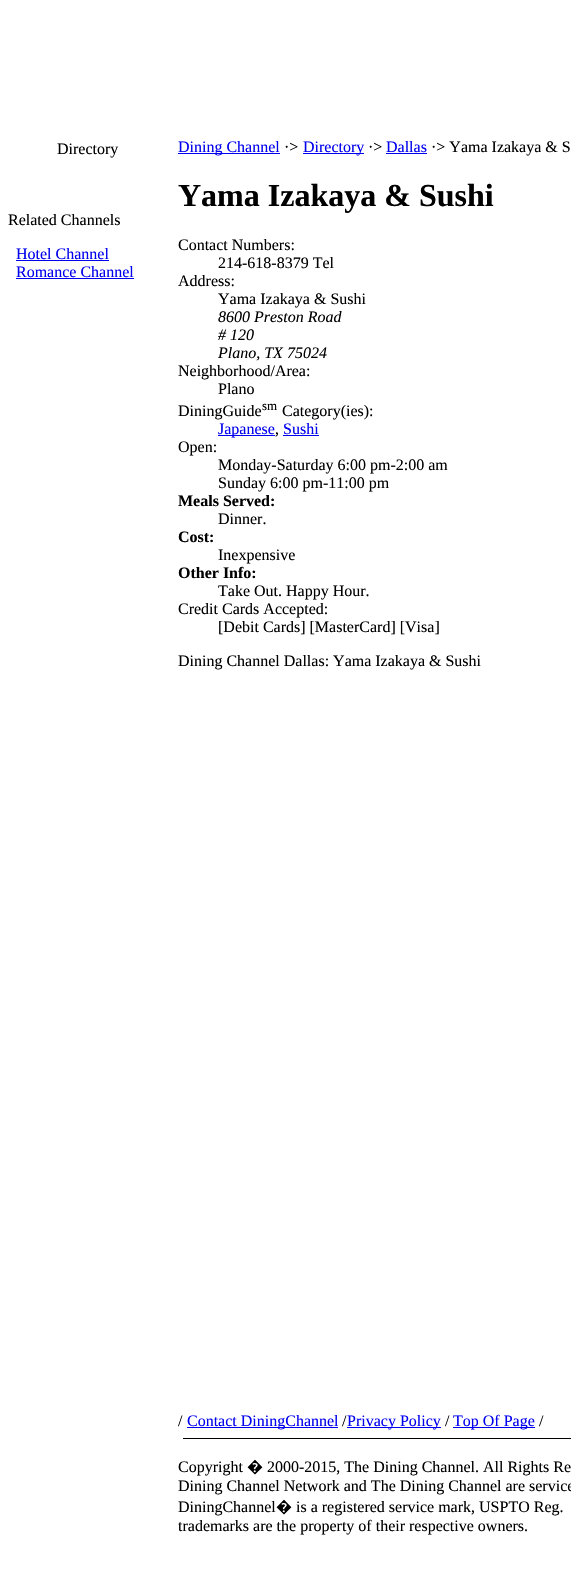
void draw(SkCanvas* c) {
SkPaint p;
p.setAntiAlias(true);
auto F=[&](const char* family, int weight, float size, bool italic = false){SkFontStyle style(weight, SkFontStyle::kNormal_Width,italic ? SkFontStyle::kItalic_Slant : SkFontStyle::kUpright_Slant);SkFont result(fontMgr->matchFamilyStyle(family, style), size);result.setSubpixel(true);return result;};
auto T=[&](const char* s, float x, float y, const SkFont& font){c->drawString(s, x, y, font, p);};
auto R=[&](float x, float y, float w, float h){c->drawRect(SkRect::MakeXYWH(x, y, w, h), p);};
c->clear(0xffffffff);
auto f1 = F("Liberation Serif",400,16);
p.setColor(0xff000000);
T("Directory",57,154,f1);
T("Related Channels",8,225,f1);
p.setColor(0xff0000ee);
T("Hotel Channel",16,259,f1);
R(16,260,93,1);
T("Romance Channel",16,277,f1);
R(16,278,118,1);
R(178,153,102,1);
T("Dining Channel",178,152,f1);
p.setColor(0xff000000);
T("·>",284,152,f1);
p.setColor(0xff0000ee);
R(303,153,61,1);
T("Directory",303,152,f1);
p.setColor(0xff000000);
T("·>",368,152,f1);
p.setColor(0xff0000ee);
T("Dallas",386,152,f1);
R(386,153,41,1);
p.setColor(0xff000000);
T("·> Yama Izakaya & S",431,152,f1);
auto f2 = F("Liberation Serif",700,32);
T("Yama Izakaya & Sushi",178,206,f2);
T("Contact Numbers:",178,250,f1);
T("214-618-8379 Tel",218,268,f1);
T("Address:",178,286,f1);
T("Yama Izakaya & Sushi",218,304,f1);
auto f3 = F("Liberation Serif",400,16,true);
T("8600 Preston Road",218,322,f3);
T("# 120",218,340,f3);
T("Plano, TX 75024",218,358,f3);
T("Neighborhood/Area:",178,376,f1);
T("Plano",218,394,f1);
T("DiningGuide",178,416,f1);
auto f4 = F("Liberation Serif",400,13);
T("sm",262,410,f4);
T("Category(ies):",282,416,f1);
p.setColor(0xff0000ee);
R(218,435,57,1);
T("Japanese",218,434,f1);
p.setColor(0xff000000);
T(",",275,434,f1);
p.setColor(0xff0000ee);
T("Sushi",283,434,f1);
R(283,435,36,1);
p.setColor(0xff000000);
T("Open:",178,452,f1);
T("Monday-Saturday 6:00 pm-2:00 am",218,470,f1);
T("Sunday 6:00 pm-11:00 pm",218,488,f1);
auto f5 = F("Liberation Serif",700,16);
T("Meals Served:",178,506,f5);
T("Dinner.",218,524,f1);
T("Cost:",178,542,f5);
T("Inexpensive",218,560,f1);
T("Other Info:",178,578,f5);
T("Take Out. Happy Hour.",218,596,f1);
T("Credit Cards Accepted:",178,614,f1);
T("[Debit Cards] [MasterCard] [Visa]",218,632,f1);
T("Dining Channel Dallas: Yama Izakaya & Sushi",178,666,f1);
T("/",178,1426,f1);
p.setColor(0xff0000ee);
R(187,1427,151,1);
T("Contact DiningChannel",187,1426,f1);
p.setColor(0xff000000);
T("/",342,1426,f1);
p.setColor(0xff0000ee);
R(347,1427,94,1);
T("Privacy Policy",347,1426,f1);
p.setColor(0xff000000);
T("/",445,1426,f1);
p.setColor(0xff0000ee);
R(453,1427,82,1);
T("Top Of Page",453,1426,f1);
p.setColor(0xff000000);
T("/",539,1426,f1);
R(183,1438,388,1);
T("Copyright",178,1472,f1);
auto f6 = F("Noto Sans",400,16);
T("�",247,1472,f6);
T("2000-2015, The Dining Channel. All Rights Re",267,1472,f1);
T("Dining Channel Network and The Dining Channel are service",178,1491,f1);
T("DiningChannel",178,1512,f1);
T("�",276,1512,f6);
T("is a registered service mark, USPTO Reg.",296,1512,f1);
T("trademarks are the property of their respective owners.",178,1531,f1);
}
